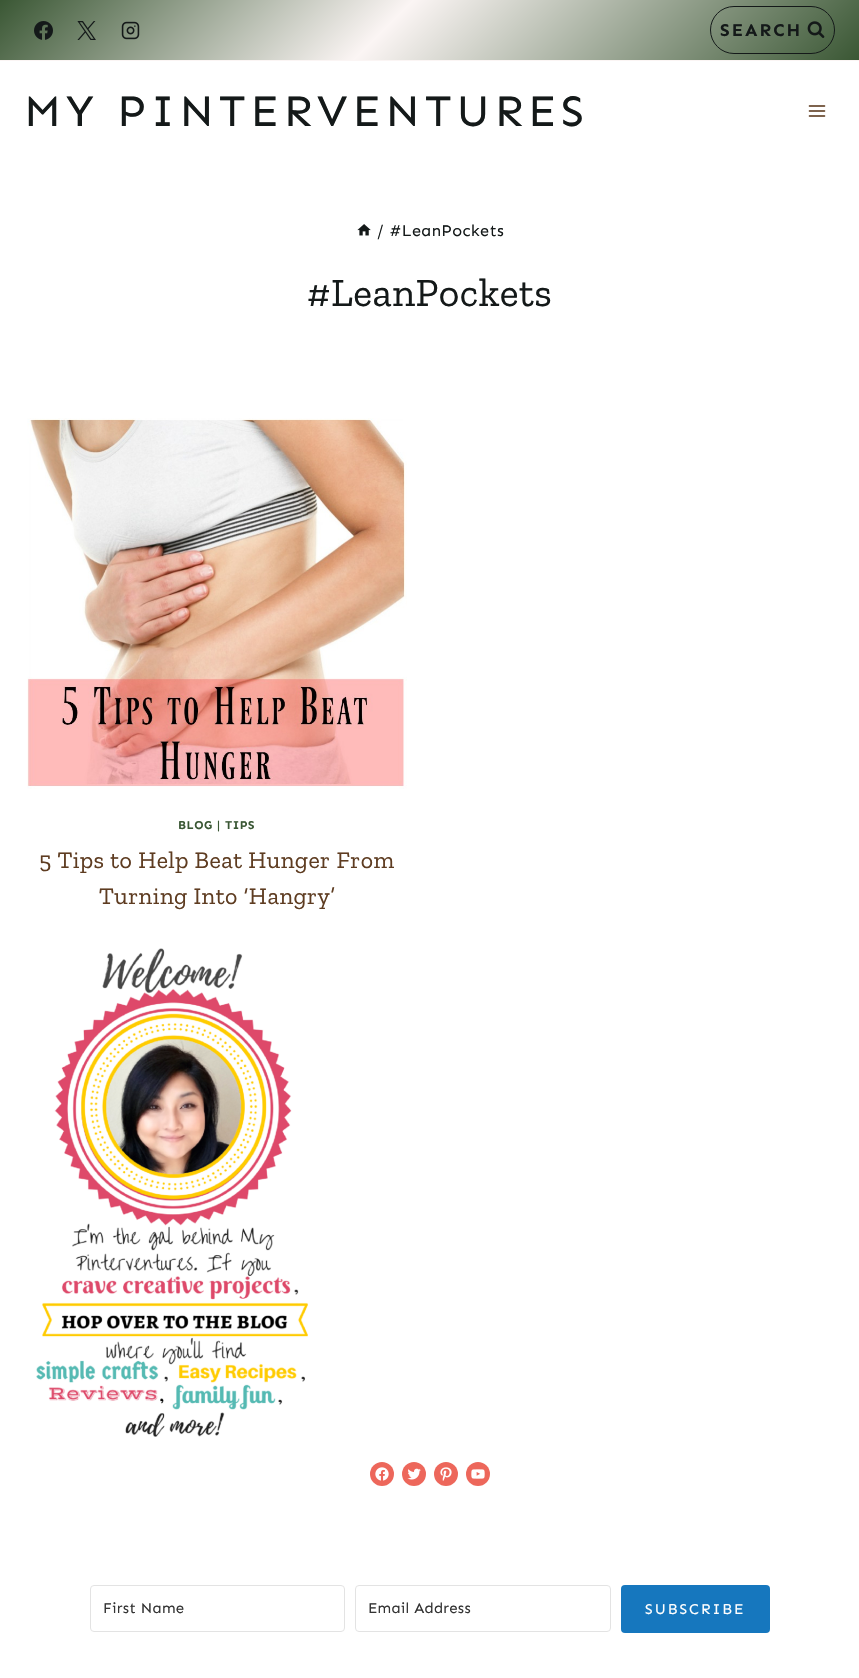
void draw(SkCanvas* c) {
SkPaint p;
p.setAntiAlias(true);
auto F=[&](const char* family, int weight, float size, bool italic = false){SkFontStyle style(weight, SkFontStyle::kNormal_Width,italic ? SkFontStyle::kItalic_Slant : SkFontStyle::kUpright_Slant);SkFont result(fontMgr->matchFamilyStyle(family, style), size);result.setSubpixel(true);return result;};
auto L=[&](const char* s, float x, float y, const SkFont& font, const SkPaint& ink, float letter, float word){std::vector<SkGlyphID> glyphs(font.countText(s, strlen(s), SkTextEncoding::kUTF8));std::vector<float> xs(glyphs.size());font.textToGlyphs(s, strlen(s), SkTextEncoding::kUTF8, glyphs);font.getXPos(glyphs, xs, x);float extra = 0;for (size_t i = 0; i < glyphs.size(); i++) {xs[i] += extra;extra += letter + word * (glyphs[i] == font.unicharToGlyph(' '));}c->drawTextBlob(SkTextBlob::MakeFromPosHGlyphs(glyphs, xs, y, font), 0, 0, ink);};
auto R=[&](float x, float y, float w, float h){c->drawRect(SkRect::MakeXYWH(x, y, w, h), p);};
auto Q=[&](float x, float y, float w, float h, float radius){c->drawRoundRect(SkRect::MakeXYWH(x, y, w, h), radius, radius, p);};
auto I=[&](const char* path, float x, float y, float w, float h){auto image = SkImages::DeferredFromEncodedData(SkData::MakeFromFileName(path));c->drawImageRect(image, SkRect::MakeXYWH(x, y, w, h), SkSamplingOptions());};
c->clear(0xffffffff);
{
const SkColor colors[] = {0xff3a5734,0xfffbf5f4,0xff3a5734};
const float stops[] = {0,.45,1};
const SkPoint ends[] = {{200,-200}, {659,260}};
p.setShader(SkGradientShader::MakeLinear(ends, colors, stops, 3, SkTileMode::kClamp));
p.setAlpha(255);
}
R(0,0,859,60);
p.setShader(nullptr);
p.setColor(0xfffbf5f4);
R(0,60,859,1);
I("1.png",34,21,19,19);
I("2.png",77,21,19,19);
I("3.png",121,21,19,19);
p.setStroke(true);
p.setStrokeWidth(1);
p.setColor(0xff141919);
c->drawRoundRect(SkRect::MakeXYWH(710.5,6.5,124,47),23.5,23.5,p);
auto f1 = F("Sen",700,18);
p.setStroke(false);
L("SEARCH",720,36,f1,p,2,0);
I("4.png",807,21,18,17);
auto f2 = F("Sen",400,45);
L("MY PINTERVENTURES",24,126,f2,p,5,0);
I("5.png",808,105,18,12);
I("6.png",357,224,14,12);
auto f3 = F("Sen",400,16.25);
L("/ #LeanPockets",377,236,f3,p,.4,0);
auto f4 = F("Zilla Slab",400,40);
L("#LeanPockets",307,306,f4,p,.4,0);
I("7.png",27,418,380,371);
auto f5 = F("Sen",700,12);
p.setColor(0xff3a5734);
L("BLOG",178,829,f5,p,.5,0);
auto f6 = F("Sen",600,12);
L("|",217,829,f6,p,.5,0);
L("TIPS",225,829,f5,p,.5,0);
auto f7 = F("Zilla Slab",400,24);
p.setColor(0xff5e3c21);
L("5 Tips to Help Beat Hunger From",39,868,f7,p,.4,0);
L("Turning Into ‘Hangry’",99,904,f7,p,.4,0);
I("8.png",36,948,273,489);
p.setColor(0xffed675b);
c->drawCircle(382,1474,12,p);
I("9.png",375,1467,14,14);
c->drawCircle(414,1474,12,p);
I("10.png",407,1468,14,12);
c->drawCircle(446,1474,12,p);
I("11.png",440,1467,12,14);
c->drawCircle(478,1474,12,p);
I("12.png",471,1469,14,10);
p.setStroke(true);
p.setColor(0xffe3e3e3);
c->drawRoundRect(SkRect::MakeXYWH(90.5,1585.5,254,46),3.5,3.5,p);
auto f8 = F("Sen",400,15);
p.setStroke(false);
p.setColor(0xff333333);
L("First Name",103,1613,f8,p,.25,0);
p.setStroke(true);
p.setColor(0xffe3e3e3);
c->drawRoundRect(SkRect::MakeXYWH(355.5,1585.5,255,46),3.5,3.5,p);
p.setStroke(false);
p.setColor(0xff333333);
L("Email Address",368,1613,f8,p,.25,0);
p.setColor(0xff1677be);
Q(621,1585,149,48,4);
p.setColor(0xffffffff);
L("SUBSCRIBE",645,1614,f8,p,2,0);
}
